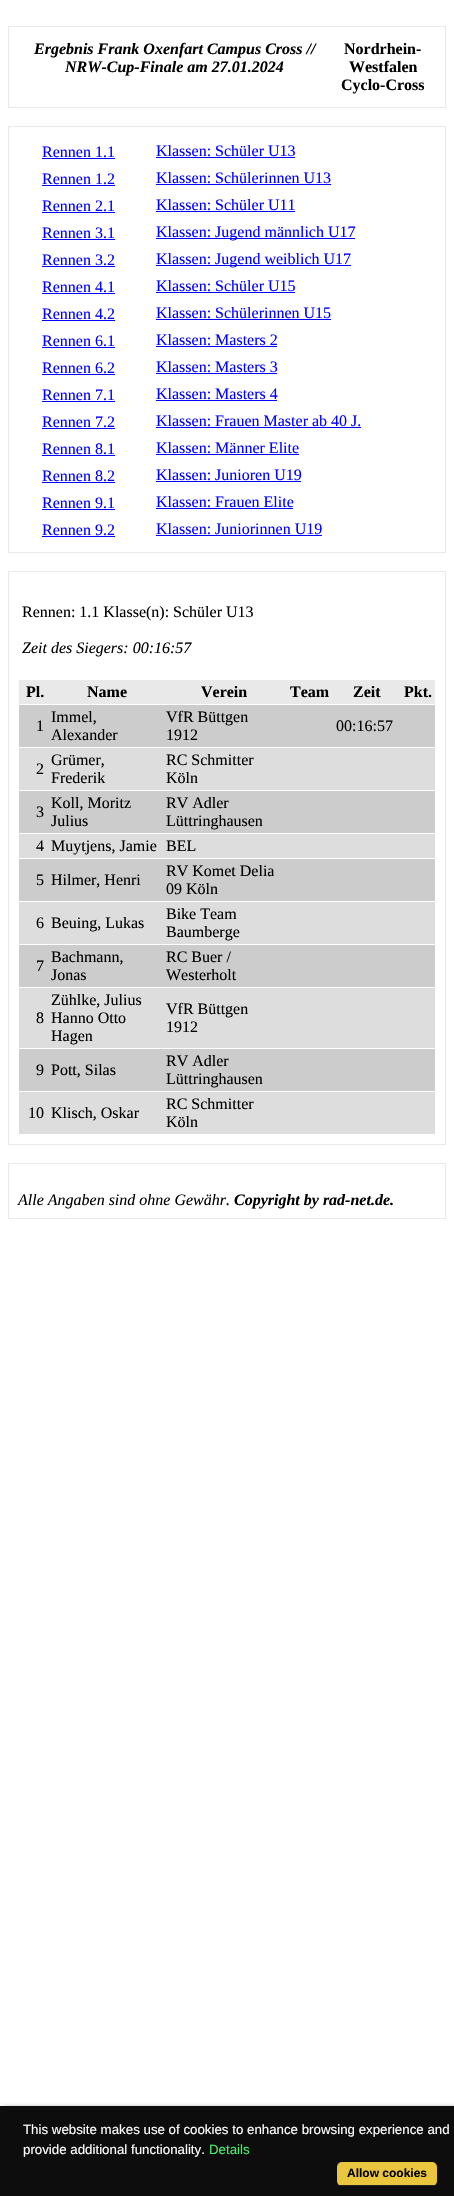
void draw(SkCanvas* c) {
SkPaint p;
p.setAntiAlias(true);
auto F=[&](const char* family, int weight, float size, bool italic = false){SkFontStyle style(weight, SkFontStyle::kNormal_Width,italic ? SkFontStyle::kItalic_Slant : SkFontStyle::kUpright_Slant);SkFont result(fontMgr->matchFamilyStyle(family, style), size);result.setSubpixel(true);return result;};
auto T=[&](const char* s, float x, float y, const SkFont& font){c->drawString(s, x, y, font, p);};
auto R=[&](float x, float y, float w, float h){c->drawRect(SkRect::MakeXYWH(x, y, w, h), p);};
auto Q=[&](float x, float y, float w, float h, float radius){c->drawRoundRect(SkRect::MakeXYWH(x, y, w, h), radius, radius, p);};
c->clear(0xffffffff);
p.setColor(0xffe9e9e9);
R(8,26,438,82);
p.setColor(0xffffffff);
R(9,27,436,80);
auto f1 = F("Liberation Serif",700,16,true);
p.setColor(0xff000000);
T("Ergebnis Frank Oxenfart Campus Cross //",34,54,f1);
T("NRW-Cup-Finale am 27.01.2024",65,72,f1);
auto f2 = F("Liberation Serif",700,16);
T("Nordrhein-",344,54,f2);
T("Westfalen",349,72,f2);
T("Cyclo-Cross",341,90,f2);
p.setColor(0xffe9e9e9);
R(8,126,438,427);
p.setColor(0xffffffff);
R(9,127,436,425);
auto f3 = F("Liberation Serif",400,16);
p.setColor(0xff0000ff);
T("Rennen 1.1",42,157,f3);
R(42,158,73,1);
T("Klassen: Schüler U13",156,156,f3);
R(156,157,139,1);
T("Rennen 1.2",42,184,f3);
R(42,185,73,1);
T("Klassen: Schülerinnen U13",156,183,f3);
R(156,184,175,1);
T("Rennen 2.1",42,211,f3);
R(42,212,73,1);
T("Klassen: Schüler U11",156,210,f3);
R(156,211,139,1);
T("Rennen 3.1",42,238,f3);
R(42,239,73,1);
R(156,238,199,1);
T("Klassen: Jugend männlich U17",156,237,f3);
T("Rennen 3.2",42,265,f3);
R(42,266,73,1);
R(156,265,195,1);
T("Klassen: Jugend weiblich U17",156,264,f3);
T("Rennen 4.1",42,292,f3);
R(42,293,73,1);
T("Klassen: Schüler U15",156,291,f3);
R(156,292,139,1);
T("Rennen 4.2",42,319,f3);
R(42,320,73,1);
T("Klassen: Schülerinnen U15",156,318,f3);
R(156,319,175,1);
T("Rennen 6.1",42,346,f3);
R(42,347,73,1);
T("Klassen: Masters 2",156,345,f3);
R(156,346,121,1);
T("Rennen 6.2",42,373,f3);
R(42,374,73,1);
T("Klassen: Masters 3",156,372,f3);
R(156,373,121,1);
T("Rennen 7.1",42,400,f3);
R(42,401,73,1);
T("Klassen: Masters 4",156,399,f3);
R(156,400,121,1);
T("Rennen 7.2",42,427,f3);
R(42,428,73,1);
T("Klassen: Frauen Master ab 40 J.",156,426,f3);
R(156,427,205,1);
T("Rennen 8.1",42,454,f3);
R(42,455,73,1);
T("Klassen: Männer Elite",156,453,f3);
R(156,454,143,1);
T("Rennen 8.2",42,481,f3);
R(42,482,73,1);
T("Klassen: Junioren U19",156,480,f3);
R(156,481,145,1);
T("Rennen 9.1",42,508,f3);
R(42,509,73,1);
T("Klassen: Frauen Elite",156,507,f3);
R(156,508,137,1);
T("Rennen 9.2",42,535,f3);
R(42,536,73,1);
T("Klassen: Juniorinnen U19",156,534,f3);
R(156,535,166,1);
p.setColor(0xffe9e9e9);
R(8,571,438,574);
p.setColor(0xffffffff);
R(9,572,436,572);
p.setColor(0xff000000);
T("Rennen: 1.1 Klasse(n): Schüler U13",22,617,f3);
auto f4 = F("Liberation Serif",400,16,true);
T("Zeit des Siegers: 00:16:57",22,653,f4);
p.setColor(0xffe9e9e9);
R(19,680,416,24);
p.setColor(0xff000000);
T("Pl.",26,697,f2);
T("Name",87,697,f2);
T("Verein",201,697,f2);
T("Team",290,697,f2);
T("Zeit",353,697,f2);
T("Pkt.",404,697,f2);
p.setColor(0xffcccccc);
R(19,705,416,42);
p.setColor(0xff000000);
T("1",36,731,f3);
T("Immel,",51,722,f3);
T("Alexander",51,740,f3);
T("VfR Büttgen",166,722,f3);
T("1912",166,740,f3);
T("00:16:57",336,731,f3);
p.setColor(0xffdddddd);
R(19,748,416,42);
p.setColor(0xff000000);
T("2",36,774,f3);
T("Grümer,",51,765,f3);
T("Frederik",51,783,f3);
T("RC Schmitter",166,765,f3);
T("Köln",166,783,f3);
p.setColor(0xffcccccc);
R(19,791,416,42);
p.setColor(0xff000000);
T("3",36,817,f3);
T("Koll, Moritz",51,808,f3);
T("Julius",51,826,f3);
T("RV Adler",166,808,f3);
T("Lüttringhausen",166,826,f3);
p.setColor(0xffdddddd);
R(19,834,416,24);
p.setColor(0xff000000);
T("4",36,851,f3);
T("Muytjens, Jamie",51,851,f3);
T("BEL",166,851,f3);
p.setColor(0xffcccccc);
R(19,859,416,42);
p.setColor(0xff000000);
T("5",36,885,f3);
T("Hilmer, Henri",51,885,f3);
T("RV Komet Delia",166,876,f3);
T("09 Köln",166,894,f3);
p.setColor(0xffdddddd);
R(19,902,416,42);
p.setColor(0xff000000);
T("6",36,928,f3);
T("Beuing, Lukas",51,928,f3);
T("Bike Team",166,919,f3);
T("Baumberge",166,937,f3);
p.setColor(0xffcccccc);
R(19,945,416,42);
p.setColor(0xff000000);
T("7",36,971,f3);
T("Bachmann,",51,962,f3);
T("Jonas",51,980,f3);
T("RC Buer /",166,962,f3);
T("Westerholt",166,980,f3);
p.setColor(0xffdddddd);
R(19,988,416,60);
p.setColor(0xff000000);
T("8",36,1023,f3);
T("Zühlke, Julius",51,1005,f3);
T("Hanno Otto",51,1023,f3);
T("Hagen",51,1041,f3);
T("VfR Büttgen",166,1014,f3);
T("1912",166,1032,f3);
p.setColor(0xffcccccc);
R(19,1049,416,42);
p.setColor(0xff000000);
T("9",36,1075,f3);
T("Pott, Silas",51,1075,f3);
T("RV Adler",166,1066,f3);
T("Lüttringhausen",166,1084,f3);
p.setColor(0xffdddddd);
R(19,1092,416,42);
p.setColor(0xff000000);
T("10",28,1118,f3);
T("Klisch, Oskar",51,1118,f3);
T("RC Schmitter",166,1109,f3);
T("Köln",166,1127,f3);
p.setColor(0xffe9e9e9);
R(8,1163,438,56);
p.setColor(0xffffffff);
R(9,1164,436,54);
p.setColor(0xff000000);
T("Alle Angaben sind ohne Gewähr.",18,1205,f4);
T("Copyright by rad-net.de.",234,1205,f1);
p.setColor(0x99000000);
p.setMaskFilter(SkMaskFilter::MakeBlur(kNormal_SkBlurStyle, 2.5));
c->drawRect(SkRect::MakeXYWH(2,2108,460,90),p);
p.setMaskFilter(nullptr);
p.setColor(0xff0d0d0d);
R(0,2106,454,90);
auto f5 = F("Liberation Sans",400,13.3);
p.setColor(0xffffffff);
T("This website makes use of cookies to enhance browsing experience and",23,2134,f5);
T("provide additional functionality.",23,2154,f5);
p.setColor(0xff4bec69);
T("Details",209,2154,f5);
p.setColor(0xffeac53e);
Q(337,2162,100,24,5);
p.setColor(0xff222222);
R(340,2185,95,1);
auto f6 = F("Liberation Sans",700,12);
p.setColor(0xff000000);
T("Allow cookies",347,2177,f6);
}
